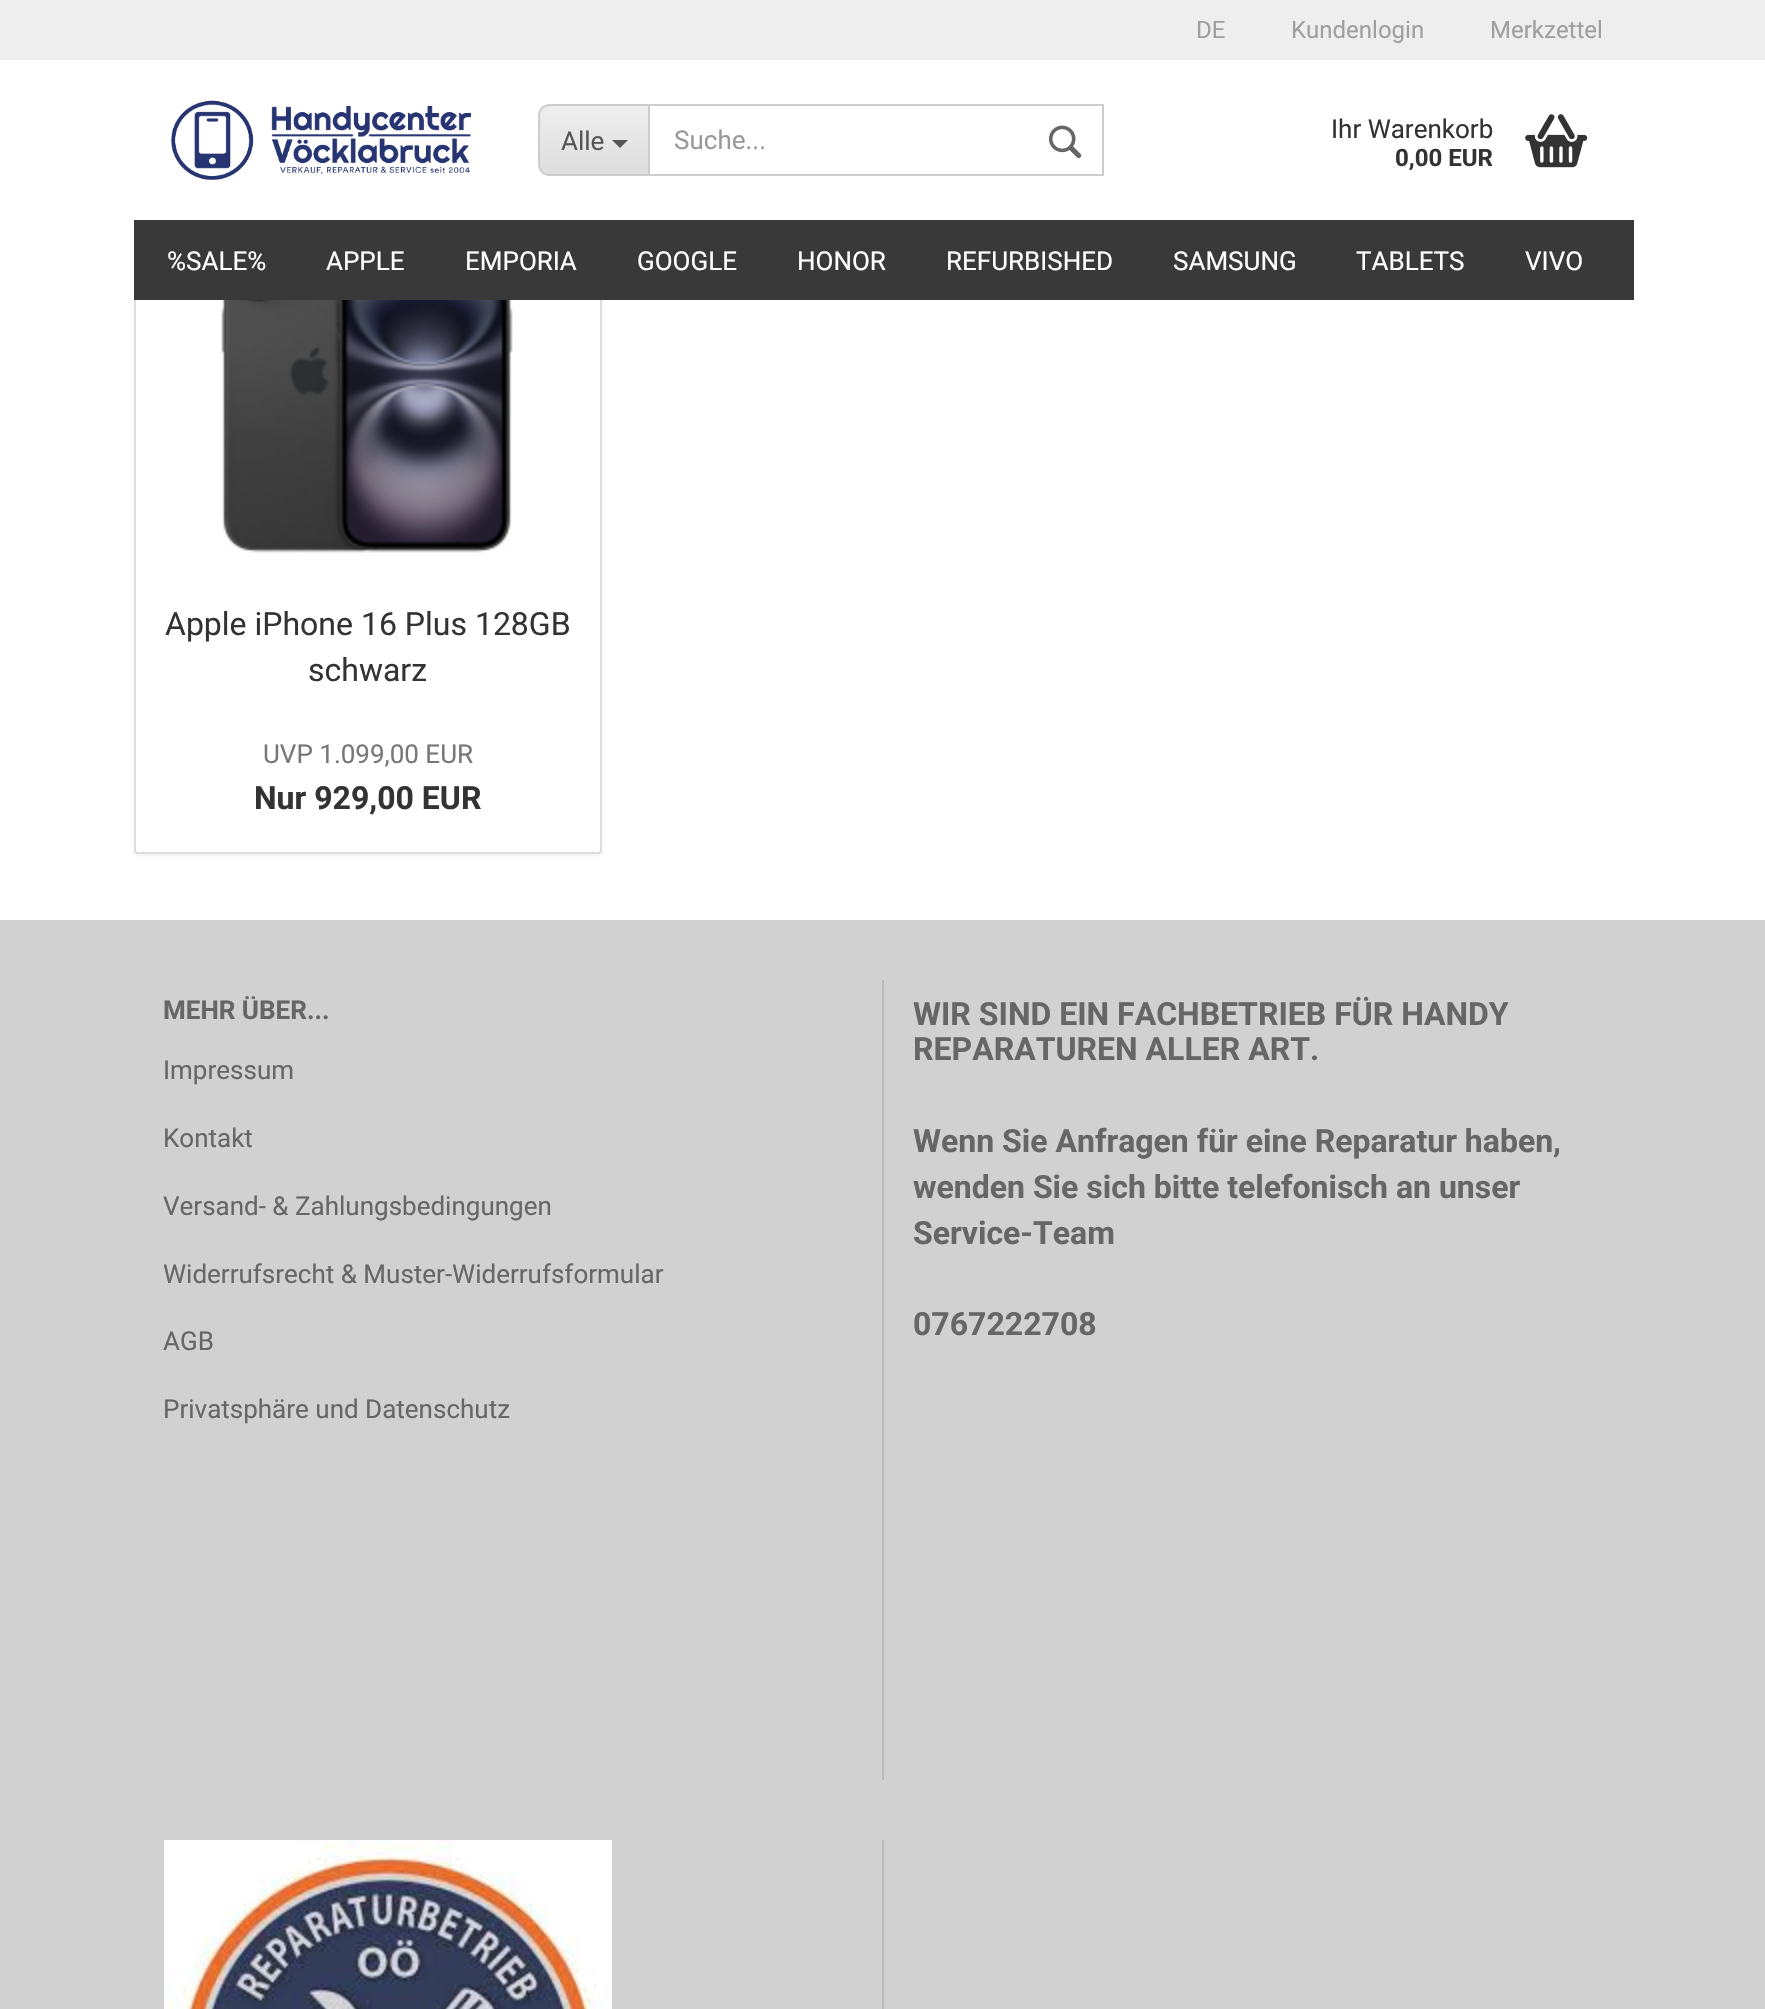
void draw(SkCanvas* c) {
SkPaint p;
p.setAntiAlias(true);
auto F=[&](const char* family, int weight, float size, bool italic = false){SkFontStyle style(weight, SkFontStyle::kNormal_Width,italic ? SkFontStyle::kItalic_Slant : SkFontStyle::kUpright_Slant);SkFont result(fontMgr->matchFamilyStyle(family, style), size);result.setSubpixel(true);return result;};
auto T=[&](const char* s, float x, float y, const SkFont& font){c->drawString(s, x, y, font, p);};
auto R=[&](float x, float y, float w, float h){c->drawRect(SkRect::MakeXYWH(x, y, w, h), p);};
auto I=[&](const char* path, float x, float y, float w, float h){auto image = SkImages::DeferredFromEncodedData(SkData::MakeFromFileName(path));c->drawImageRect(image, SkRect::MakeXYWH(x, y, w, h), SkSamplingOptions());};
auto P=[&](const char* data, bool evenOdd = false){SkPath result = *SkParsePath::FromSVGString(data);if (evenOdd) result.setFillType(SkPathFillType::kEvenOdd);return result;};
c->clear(0xffffffff);
p.setColor(0x0d000000);
p.setMaskFilter(SkMaskFilter::MakeBlur(kNormal_SkBlurStyle, 1));
c->drawRoundRect(SkRect::MakeXYWH(134,78,468,778),4,4,p);
p.setMaskFilter(nullptr);
p.setColor(0xffffffff);
c->drawRoundRect(SkRect::MakeXYWH(135,77,466,776),3,3,p);
p.setStroke(true);
p.setStrokeWidth(2);
p.setColor(0xffdddddd);
c->drawRoundRect(SkRect::MakeXYWH(135,77,466,776),3,3,p);
p.setStroke(false);
p.setColor(0xffffffff);
R(133,76,470,224);
p.setColor(0xffeeeeee);
R(0,0,1765,60);
auto f1 = F("Roboto",400,24);
p.setColor(0xff9f9f9f);
T("DE",1196,38,f1);
T("Kundenlogin",1291,38,f1);
T("Merkzettel",1490,38,f1);
I("1.png",171,100,300,80);
c->save();
c->clipPath(P("M550 104h98v72h-98c-6.5 0-12-5.5-12-12v-48c0-6.5 5.5-12 12-12z"),true);
{
const SkColor colors[] = {0xffeeeeee,0xffdedede};
const float stops[] = {0,1};
const SkPoint ends[] = {{594,106}, {594,174}};
p.setShader(SkGradientShader::MakeLinear(ends, colors, stops, 2, SkTileMode::kClamp));
p.setAlpha(255);
}
R(538,106,110,68);
c->restore();
p.setShader(nullptr);
p.setColor(0xffcccccc);
c->drawPath(P("M550 104h98v72h-98c-7 0-12-5-12-12v-48c0-7 5-12 12-12zm0 2h98v68h-98c-6 0-10-4-10-10v-48c0-6 4-10 10-10z",true),p);
auto f2 = F("Roboto",400,26);
p.setColor(0xff555555);
T("Alle",561,150,f2);
c->drawPath(P("M612 140h16l-8 8z"),p);
p.setStroke(true);
p.setColor(0xffcccccc);
c->drawRect(SkRect::MakeXYWH(649,105,454,70),p);
p.setStroke(false);
p.setColor(0xff999999);
T("Suche...",674,149,f2);
I("2.png",1048,125,34,34);
p.setColor(0xff333333);
T("Ihr Warenkorb",1331,138,f2);
auto f3 = F("Roboto",700,24);
T("0,00 EUR",1395,166,f3);
I("3.png",1525,114,63,54);
p.setColor(0xff393939);
R(134,220,1500,80);
p.setColor(0xffffffff);
T("%SALE%",167,270,f2);
T("APPLE",326,270,f2);
T("EMPORIA",465,270,f2);
T("GOOGLE",637,270,f2);
T("HONOR",797,270,f2);
T("REFURBISHED",946,270,f2);
T("SAMSUNG",1173,270,f2);
T("TABLETS",1356,270,f2);
T("VIVO",1525,270,f2);
I("4.png",221,300,292,253);
auto f4 = F("Roboto",400,32);
p.setColor(0xff333333);
T("Apple iPhone 16 Plus 128GB",165,635,f4);
T("schwarz",308,681,f4);
p.setColor(0xff777777);
T("UVP 1.099,00 EUR",263,763,f2);
auto f5 = F("Roboto",700,32);
p.setColor(0xff333333);
T("Nur 929,00 EUR",254,809,f5);
p.setColor(0xffd1d1d1);
R(0,920,1765,1089);
p.setColor(0xffbbbbbb);
R(882,980,2,800);
auto f6 = F("Roboto",700,26);
p.setColor(0xff666666);
T("MEHR ÜBER...",163,1019,f6);
T("Impressum",163,1079,f2);
T("Kontakt",163,1147,f2);
T("Versand- & Zahlungsbedingungen",163,1215,f2);
T("Widerrufsrecht & Muster-Widerrufsformular",163,1283,f2);
T("AGB",163,1350,f2);
T("Privatsphäre und Datenschutz",163,1418,f2);
T("WIR SIND EIN FACHBETRIEB FÜR HANDY",913,1025,f5);
T("REPARATUREN ALLER ART.",913,1060,f5);
T("Wenn Sie Anfragen für eine Reparatur haben,",913,1152,f5);
T("wenden Sie sich bitte telefonisch an unser",913,1198,f5);
T("Service-Team",913,1244,f5);
T("0767222708",913,1335,f5);
p.setColor(0xffbbbbbb);
R(882,1840,2,169);
I("5.png",164,1840,448,169);
}
